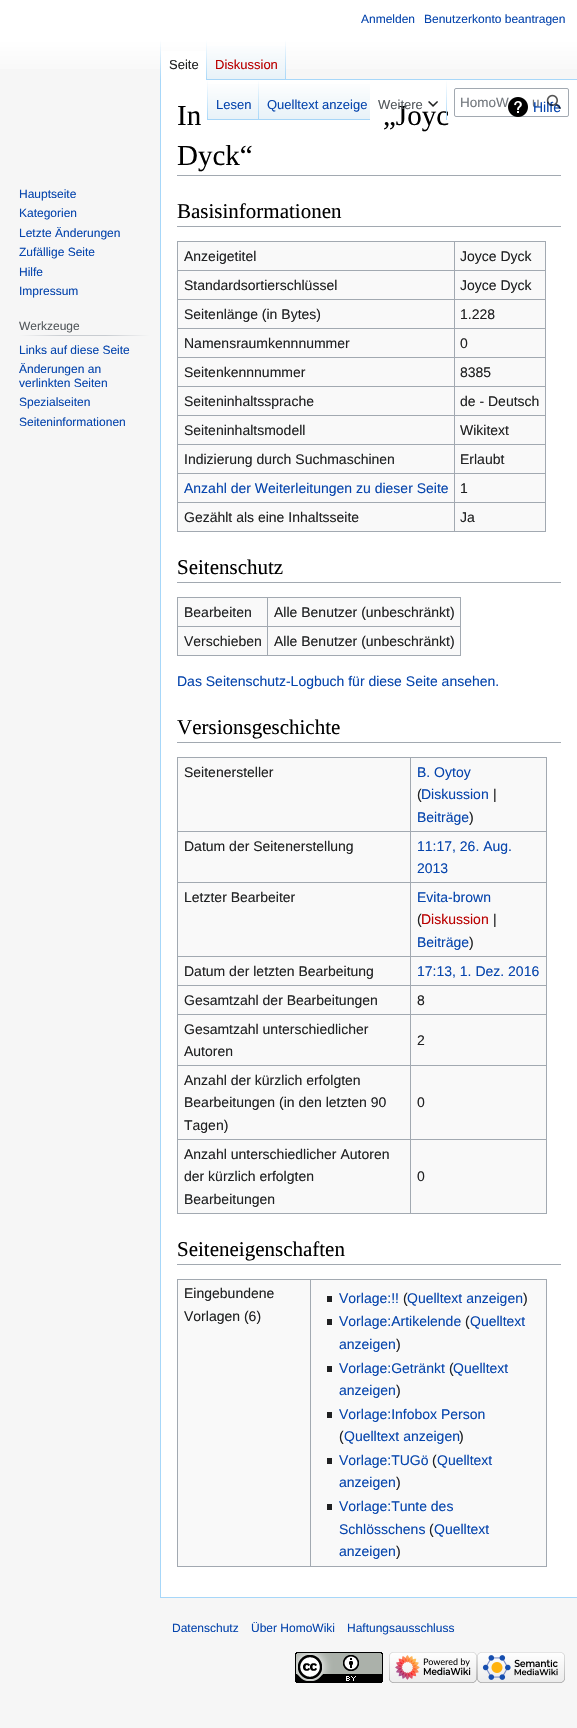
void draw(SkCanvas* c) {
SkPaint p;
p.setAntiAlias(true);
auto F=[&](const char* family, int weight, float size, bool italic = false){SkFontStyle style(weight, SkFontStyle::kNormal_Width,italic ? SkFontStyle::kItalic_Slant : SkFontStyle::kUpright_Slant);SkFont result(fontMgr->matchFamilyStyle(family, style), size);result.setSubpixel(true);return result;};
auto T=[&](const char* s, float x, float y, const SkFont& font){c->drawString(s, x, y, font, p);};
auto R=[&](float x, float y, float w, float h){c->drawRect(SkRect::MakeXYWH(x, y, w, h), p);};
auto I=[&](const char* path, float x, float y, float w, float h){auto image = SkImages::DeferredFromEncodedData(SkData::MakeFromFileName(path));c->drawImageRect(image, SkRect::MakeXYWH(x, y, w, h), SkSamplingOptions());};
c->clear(0xfff6f6f6);
{
const SkColor colors[] = {0xffffffff,0xfff6f6f6};
const float stops[] = {.5,1};
const SkPoint ends[] = {{289,0}, {289,80}};
p.setShader(SkGradientShader::MakeLinear(ends, colors, stops, 2, SkTileMode::kClamp));
p.setAlpha(255);
}
R(0,0,577,69);
auto f1 = F("Liberation Sans",400,12);
p.setShader(nullptr);
p.setColor(0xff0645ad);
T("Anmelden",361,23,f1);
T("Benutzerkonto beantragen",424,23,f1);
p.setColor(0xffa7d7f9);
R(160,1597,417,1);
R(160,79,1,1519);
{
const SkColor colors[] = {0x00a7d7f9,0xffa7d7f9};
const float stops[] = {0,1};
const SkPoint ends[] = {{161,40}, {161,80}};
p.setShader(SkGradientShader::MakeLinear(ends, colors, stops, 2, SkTileMode::kClamp));
p.setAlpha(255);
}
R(160,40,1,40);
p.setShader(nullptr);
p.setColor(0xffffffff);
R(161,51,45,29);
{
const SkColor colors[] = {0xffffffff,0xffa7d7f9};
const float stops[] = {0,1};
const SkPoint ends[] = {{207,40}, {207,80}};
p.setShader(SkGradientShader::MakeLinear(ends, colors, stops, 2, SkTileMode::kClamp));
p.setAlpha(255);
}
R(206,40,1,40);
auto f2 = F("Liberation Sans",400,13);
p.setShader(nullptr);
p.setColor(0xff202122);
T("Seite",169,69,f2);
{
const SkColor colors[] = {0xff77c1f6,0xffe8f2f8,0xffffffff};
const float stops[] = {0,.03,1};
const SkPoint ends[] = {{247,80}, {247,40}};
p.setShader(SkGradientShader::MakeLinear(ends, colors, stops, 3, SkTileMode::kClamp));
p.setAlpha(255);
}
R(207,46,79,34);
{
const SkColor colors[] = {0x00a7d7f9,0xffa7d7f9};
const float stops[] = {0,1};
const SkPoint ends[] = {{286,40}, {286,80}};
p.setShader(SkGradientShader::MakeLinear(ends, colors, stops, 2, SkTileMode::kClamp));
p.setAlpha(255);
}
R(285,40,1,40);
p.setShader(nullptr);
p.setColor(0xffba0000);
T("Diskussion",215,69,f2);
p.setColor(0xffffffff);
R(161,80,416,1517);
{
const SkColor colors[] = {0x00a7d7f9,0xffa7d7f9};
const float stops[] = {0,1};
const SkPoint ends[] = {{208,80}, {208,120}};
p.setShader(SkGradientShader::MakeLinear(ends, colors, stops, 2, SkTileMode::kClamp));
p.setAlpha(255);
}
R(207,80,1,40);
{
const SkColor colors[] = {0xff77c1f6,0xffe8f2f8,0xffffffff};
const float stops[] = {0,.03,1};
const SkPoint ends[] = {{234,120}, {234,80}};
p.setShader(SkGradientShader::MakeLinear(ends, colors, stops, 3, SkTileMode::kClamp));
p.setAlpha(255);
}
R(208,84,51,36);
{
const SkColor colors[] = {0x00a7d7f9,0xffa7d7f9};
const float stops[] = {0,1};
const SkPoint ends[] = {{259,80}, {259,120}};
p.setShader(SkGradientShader::MakeLinear(ends, colors, stops, 2, SkTileMode::kClamp));
p.setAlpha(255);
}
R(258,80,1,40);
p.setShader(nullptr);
p.setColor(0xff0645ad);
T("Lesen",216,109,f2);
{
const SkColor colors[] = {0xff77c1f6,0xffe8f2f8,0xffffffff};
const float stops[] = {0,.03,1};
const SkPoint ends[] = {{315,120}, {315,80}};
p.setShader(SkGradientShader::MakeLinear(ends, colors, stops, 3, SkTileMode::kClamp));
p.setAlpha(255);
}
R(259,84,111,36);
p.setShader(nullptr);
p.setColor(0xff0645ad);
T("Quelltext anzeige",267,109,f2);
auto f3 = F("Liberation Serif",400,29);
p.setColor(0xff000000);
T("„Joyc",383,125,f3);
{
const SkColor colors[] = {0x00a7d7f9,0xffa7d7f9};
const float stops[] = {0,1};
const SkPoint ends[] = {{447,80}, {447,120}};
p.setShader(SkGradientShader::MakeLinear(ends, colors, stops, 2, SkTileMode::kClamp));
p.setAlpha(255);
}
R(446,80,1,40);
p.setShader(nullptr);
p.setColor(0xff54595d);
T("Weitere",378,109,f2);
I("1.png",428,101,10,6);
p.setStroke(true);
p.setStrokeWidth(1);
p.setColor(0xffa2a9b1);
c->drawRoundRect(SkRect::MakeXYWH(454.5,88.5,114,28),1.5,1.5,p);
auto f4 = F("Liberation Sans",400,13.5);
p.setStroke(false);
p.setColor(0xff72777d);
T("HomoW",460,107,f4);
T("u",532,107,f4);
auto f5 = F("Liberation Sans",400,14);
p.setColor(0xff0645ad);
T("Hilfe",533,112,f5);
I("2.png",546,94,15,15);
T("Hauptseite",19,198,f1);
T("Kategorien",19,217,f1);
T("Letzte Änderungen",19,237,f1);
T("Zufällige Seite",19,256,f1);
T("Hilfe",19,276,f1);
T("Impressum",19,295,f1);
{
const SkColor colors[] = {0xfff6f6f6,0xffc8ccd1,0xffc8ccd1,0xfff6f6f6};
const float stops[] = {0,.33,.66,1};
const SkPoint ends[] = {{19,336}, {150,336}};
p.setShader(SkGradientShader::MakeLinear(ends, colors, stops, 4, SkTileMode::kClamp));
p.setAlpha(255);
}
R(19,335,131,1);
p.setShader(nullptr);
p.setColor(0xff54595d);
T("Werkzeuge",19,330,f1);
p.setColor(0xff0645ad);
T("Links auf diese Seite",19,354,f1);
T("Änderungen an",19,373,f1);
T("verlinkten Seiten",19,387,f1);
T("Spezialseiten",19,406,f1);
T("Seiteninformationen",19,426,f1);
p.setColor(0xffa7d7f9);
R(286,79,291,1);
p.setColor(0xffa2a9b1);
R(177,175,384,1);
p.setColor(0xff000000);
T("In",177,125,f3);
T("Dyck“",177,165,f3);
I("3.png",508,97,20,20);
p.setColor(0xffa2a9b1);
R(177,226,384,1);
auto f6 = F("Liberation Serif",400,21);
p.setColor(0xff000000);
T("Basisinformationen",177,218,f6);
p.setColor(0xfff9f9f9);
R(178,242,367,289);
p.setColor(0xffa2a9b1);
R(454,241,92,1);
R(454,270,92,1);
R(454,299,92,1);
R(454,328,92,1);
R(454,357,92,1);
R(454,386,92,1);
R(454,415,92,1);
R(454,444,92,1);
R(454,473,92,1);
R(454,502,92,1);
R(545,502,1,30);
R(454,531,92,1);
R(454,502,1,30);
R(177,502,278,1);
R(454,473,1,30);
R(177,473,278,1);
R(454,444,1,30);
R(177,444,278,1);
R(454,415,1,30);
R(177,415,278,1);
R(454,386,1,30);
R(177,386,278,1);
R(454,357,1,30);
R(177,357,278,1);
R(454,328,1,30);
R(177,328,278,1);
R(454,299,1,30);
R(177,299,278,1);
R(454,270,1,30);
R(177,270,278,1);
R(454,241,1,30);
R(177,241,278,1);
R(177,531,278,1);
R(177,502,1,30);
R(177,473,1,30);
R(177,444,1,30);
R(177,415,1,30);
R(177,386,1,30);
R(177,357,1,30);
R(177,328,1,30);
R(177,299,1,30);
R(177,270,1,30);
R(177,241,1,30);
p.setColor(0xff202122);
T("Anzeigetitel",184,261,f5);
p.setColor(0xffa2a9b1);
R(545,473,1,30);
R(545,444,1,30);
R(545,415,1,30);
R(545,386,1,30);
R(545,357,1,30);
R(545,328,1,30);
R(545,299,1,30);
R(545,270,1,30);
R(545,241,1,30);
p.setColor(0xff202122);
T("Joyce Dyck",460,261,f5);
T("Standardsortierschlüssel",184,290,f5);
T("Joyce Dyck",460,290,f5);
T("Seitenlänge (in Bytes)",184,319,f5);
T("1.228",460,319,f5);
T("Namensraumkennnummer",184,348,f5);
T("0",460,348,f5);
T("Seitenkennnummer",184,377,f5);
T("8385",460,377,f5);
T("Seiteninhaltssprache",184,406,f5);
T("de - Deutsch",460,406,f5);
T("Seiteninhaltsmodell",184,435,f5);
T("Wikitext",460,435,f5);
T("Indizierung durch Suchmaschinen",184,464,f5);
T("Erlaubt",460,464,f5);
p.setColor(0xff0645ad);
T("Anzahl der Weiterleitungen zu dieser Seite",184,493,f5);
p.setColor(0xff202122);
T("1",460,493,f5);
T("Gezählt als eine Inhaltsseite",184,522,f5);
T("Ja",460,522,f5);
p.setColor(0xffa2a9b1);
R(177,582,384,1);
p.setColor(0xff000000);
T("Seitenschutz",177,574,f6);
p.setColor(0xfff9f9f9);
R(178,598,282,57);
p.setColor(0xffa2a9b1);
R(267,597,194,1);
R(267,626,194,1);
R(460,626,1,30);
R(267,655,194,1);
R(267,626,1,30);
R(177,626,91,1);
R(267,597,1,30);
R(177,597,91,1);
R(177,655,91,1);
R(177,626,1,30);
R(177,597,1,30);
p.setColor(0xff202122);
T("Bearbeiten",184,617,f5);
p.setColor(0xffa2a9b1);
R(460,597,1,30);
p.setColor(0xff202122);
T("Alle Benutzer (unbeschränkt)",274,617,f5);
T("Verschieben",184,646,f5);
T("Alle Benutzer (unbeschränkt)",274,646,f5);
p.setColor(0xff0645ad);
T("Das Seitenschutz-Logbuch für diese Seite ansehen.",177,686,f5);
p.setColor(0xffa2a9b1);
R(177,742,384,1);
p.setColor(0xff000000);
T("Versionsgeschichte",177,734,f6);
p.setColor(0xfff9f9f9);
R(178,758,368,455);
p.setColor(0xffa2a9b1);
R(410,757,137,1);
R(410,831,137,1);
R(410,882,137,1);
R(410,956,137,1);
R(410,985,137,1);
R(410,1014,137,1);
R(410,1065,137,1);
R(410,1139,137,1);
R(546,1139,1,75);
R(410,1213,137,1);
R(410,1139,1,75);
R(177,1139,234,1);
R(410,1065,1,75);
R(177,1065,234,1);
R(410,1014,1,52);
R(177,1014,234,1);
R(410,985,1,30);
R(177,985,234,1);
R(410,956,1,30);
R(177,956,234,1);
R(410,882,1,75);
R(177,882,234,1);
R(410,831,1,52);
R(177,831,234,1);
R(410,757,1,75);
R(177,757,234,1);
R(177,1213,234,1);
R(177,1139,1,75);
R(177,1065,1,75);
R(177,1014,1,52);
R(177,985,1,30);
R(177,956,1,30);
R(177,882,1,75);
R(177,831,1,52);
R(177,757,1,75);
p.setColor(0xff202122);
T("Seitenersteller",184,777,f5);
p.setColor(0xffa2a9b1);
R(546,1065,1,75);
R(546,1014,1,52);
R(546,985,1,30);
R(546,956,1,30);
R(546,882,1,75);
R(546,831,1,52);
R(546,757,1,75);
p.setColor(0xff0645ad);
T("B. Oytoy",417,777,f5);
p.setColor(0xff202122);
T("(",417,799,f5);
p.setColor(0xff0645ad);
T("Diskussion",421,799,f5);
p.setColor(0xff202122);
T("|",493,799,f5);
p.setColor(0xff0645ad);
T("Beiträge",417,822,f5);
p.setColor(0xff202122);
T(")",469,822,f5);
T("Datum der Seitenerstellung",184,851,f5);
p.setColor(0xff0645ad);
T("11:17, 26. Aug.",417,851,f5);
T("2013",417,873,f5);
p.setColor(0xff202122);
T("Letzter Bearbeiter",184,902,f5);
p.setColor(0xff0645ad);
T("Evita-brown",417,902,f5);
p.setColor(0xff202122);
T("(",417,924,f5);
p.setColor(0xffba0000);
T("Diskussion",421,924,f5);
p.setColor(0xff202122);
T("|",493,924,f5);
p.setColor(0xff0645ad);
T("Beiträge",417,947,f5);
p.setColor(0xff202122);
T(")",469,947,f5);
T("Datum der letzten Bearbeitung",184,976,f5);
p.setColor(0xff0645ad);
T("17:13, 1. Dez. 2016",417,976,f5);
p.setColor(0xff202122);
T("Gesamtzahl der Bearbeitungen",184,1005,f5);
T("8",417,1005,f5);
T("Gesamtzahl unterschiedlicher",184,1034,f5);
T("Autoren",184,1056,f5);
T("2",417,1045,f5);
T("Anzahl der kürzlich erfolgten",184,1085,f5);
T("Bearbeitungen (in den letzten 90",184,1107,f5);
T("Tagen)",184,1130,f5);
T("0",417,1107,f5);
T("Anzahl unterschiedlicher Autoren",184,1159,f5);
T("der kürzlich erfolgten",184,1181,f5);
T("Bearbeitungen",184,1204,f5);
T("0",417,1181,f5);
p.setColor(0xffa2a9b1);
R(177,1264,384,1);
p.setColor(0xff000000);
T("Seiteneigenschaften",177,1256,f6);
p.setColor(0xfff9f9f9);
R(178,1280,368,286);
p.setColor(0xffa2a9b1);
R(310,1279,237,1);
R(546,1279,1,288);
R(310,1566,237,1);
R(310,1279,1,288);
R(177,1279,134,1);
R(177,1566,134,1);
R(177,1279,1,288);
p.setColor(0xff202122);
T("Eingebundene",184,1298,f5);
T("Vorlagen (6)",184,1321,f5);
R(327,1296,5,6);
p.setColor(0xff0645ad);
T("Vorlage:!!",339,1303,f5);
p.setColor(0xff202122);
T("(",403,1303,f5);
p.setColor(0xff0645ad);
T("Quelltext anzeigen",407,1303,f5);
p.setColor(0xff202122);
T(")",523,1303,f5);
R(327,1319,5,6);
p.setColor(0xff0645ad);
T("Vorlage:Artikelende",339,1326,f5);
p.setColor(0xff202122);
T("(",465,1326,f5);
p.setColor(0xff0645ad);
T("Quelltext",470,1326,f5);
T("anzeigen",339,1349,f5);
p.setColor(0xff202122);
T(")",396,1349,f5);
R(327,1366,5,6);
p.setColor(0xff0645ad);
T("Vorlage:Getränkt",339,1373,f5);
p.setColor(0xff202122);
T("(",449,1373,f5);
p.setColor(0xff0645ad);
T("Quelltext",453,1373,f5);
T("anzeigen",339,1395,f5);
p.setColor(0xff202122);
T(")",396,1395,f5);
R(327,1412,5,6);
p.setColor(0xff0645ad);
T("Vorlage:Infobox Person",339,1419,f5);
p.setColor(0xff202122);
T("(",339,1441,f5);
p.setColor(0xff0645ad);
T("Quelltext anzeigen",344,1441,f5);
p.setColor(0xff202122);
T(")",459,1441,f5);
R(327,1458,5,6);
p.setColor(0xff0645ad);
T("Vorlage:TUGö",339,1465,f5);
p.setColor(0xff202122);
T("(",432,1465,f5);
p.setColor(0xff0645ad);
T("Quelltext",437,1465,f5);
T("anzeigen",339,1487,f5);
p.setColor(0xff202122);
T(")",396,1487,f5);
R(327,1504,5,6);
p.setColor(0xff0645ad);
T("Vorlage:Tunte des",339,1511,f5);
T("Schlösschens",339,1534,f5);
p.setColor(0xff202122);
T("(",429,1534,f5);
p.setColor(0xff0645ad);
T("Quelltext",434,1534,f5);
T("anzeigen",339,1556,f5);
p.setColor(0xff202122);
T(")",396,1556,f5);
p.setColor(0xff0645ad);
T("Datenschutz",172,1632,f1);
T("Über HomoWiki",251,1632,f1);
T("Haftungsausschluss",347,1632,f1);
I("4.png",295,1652,88,31);
I("5.png",389,1652,88,31);
I("6.png",477,1652,88,31);
}
